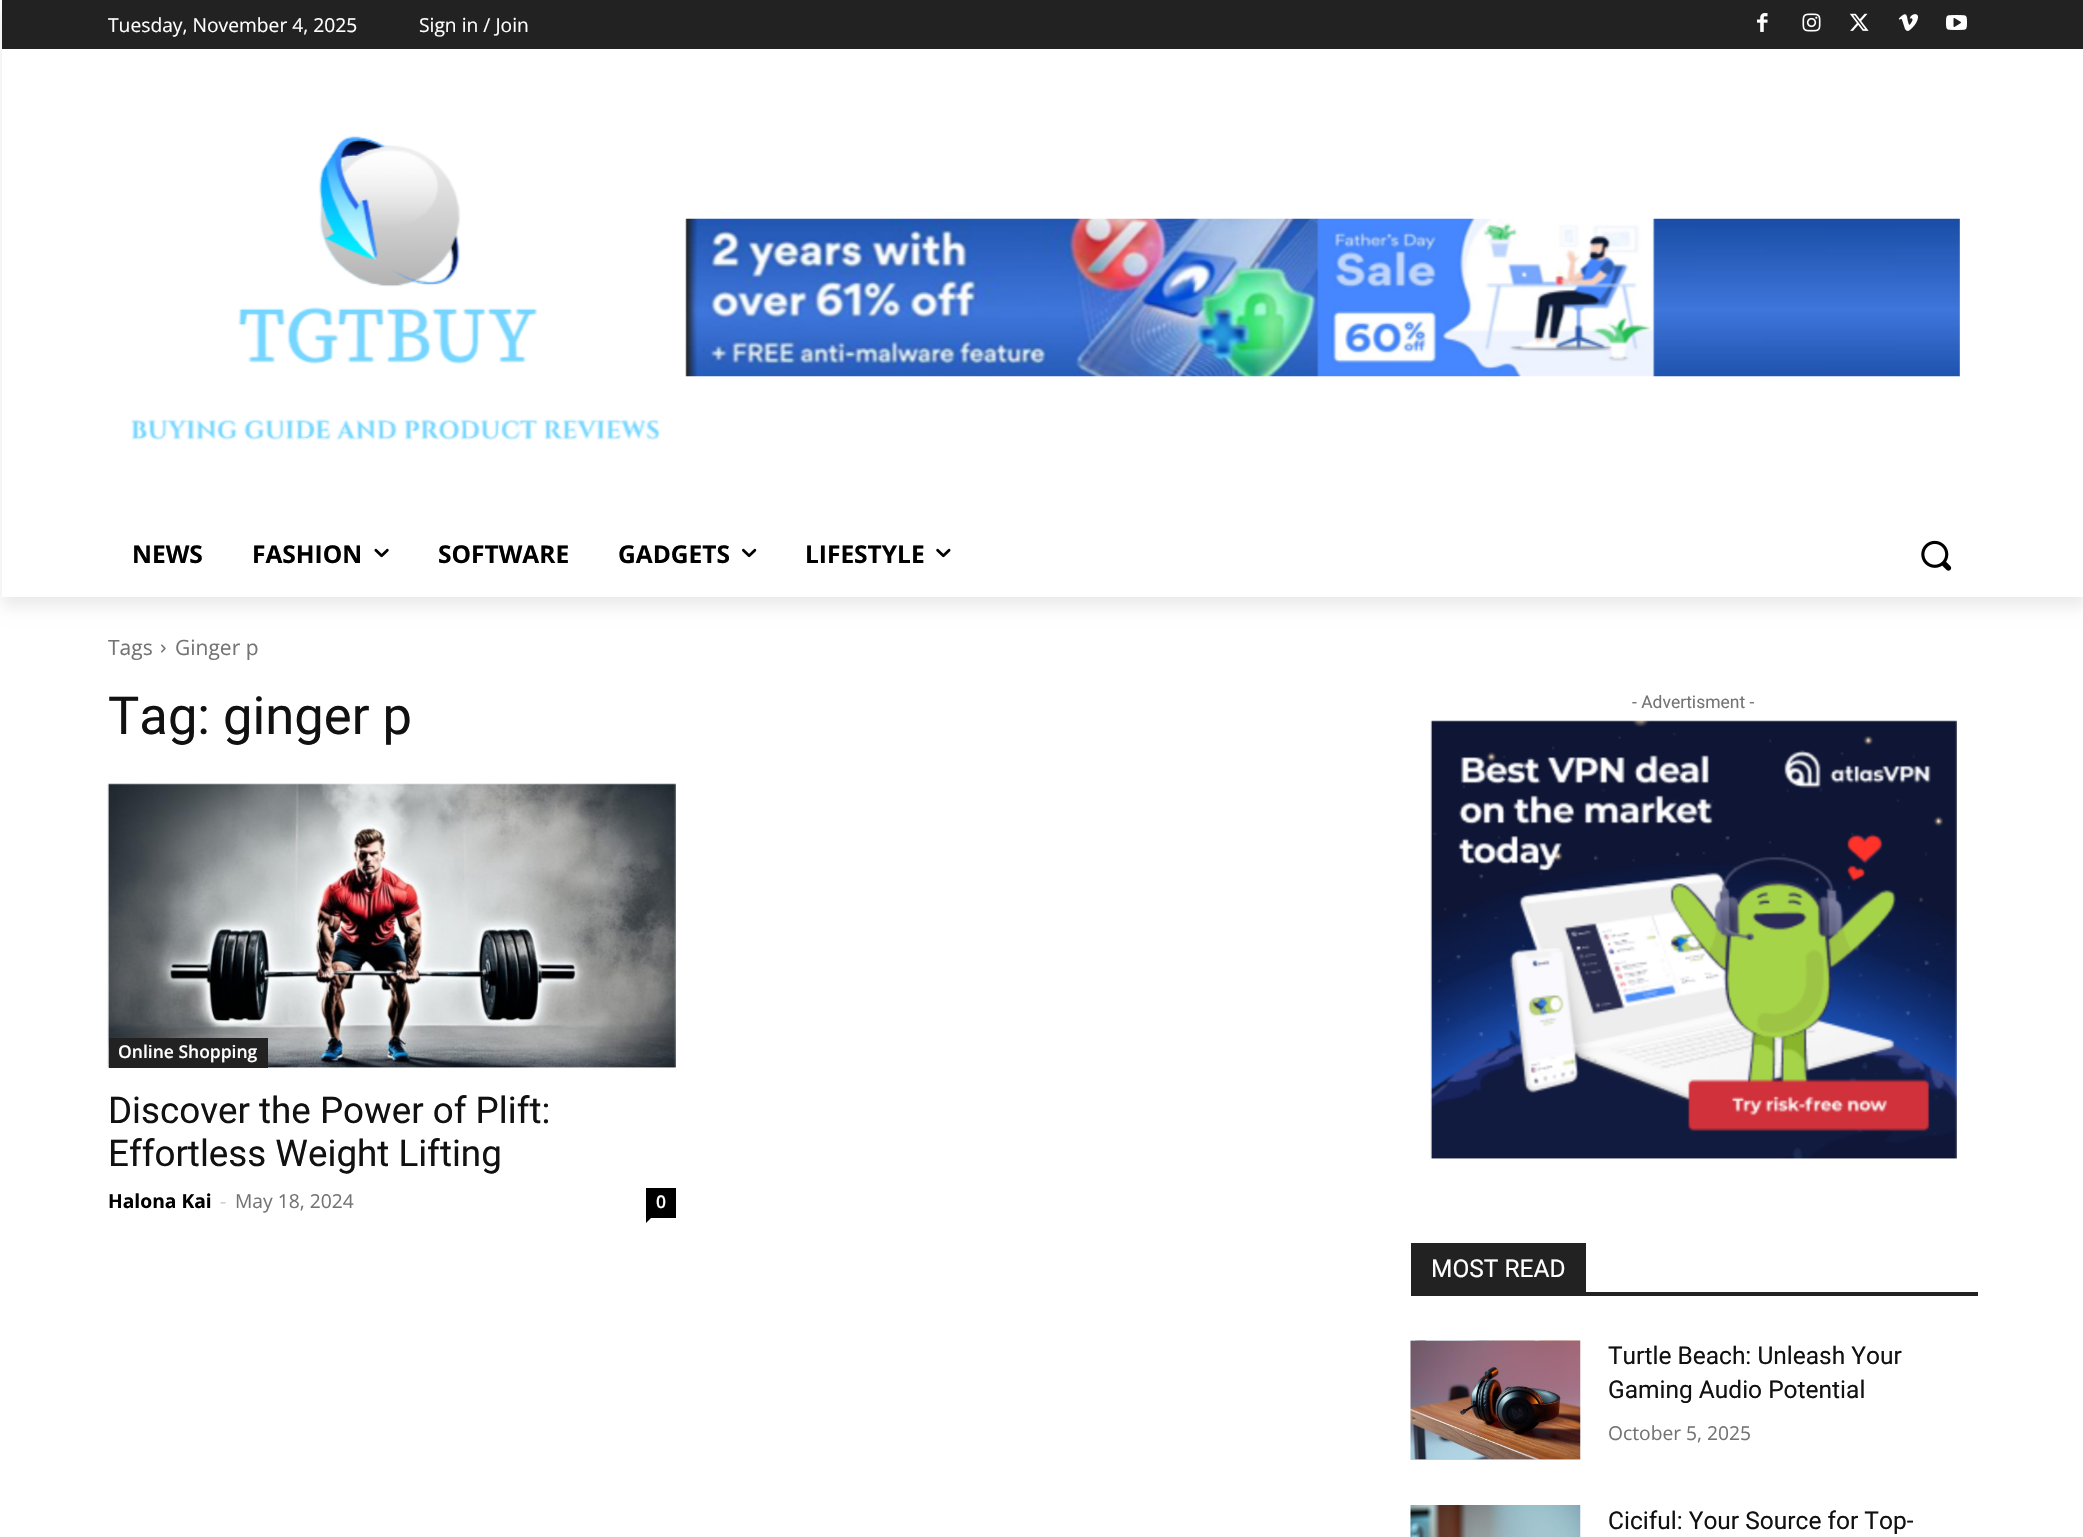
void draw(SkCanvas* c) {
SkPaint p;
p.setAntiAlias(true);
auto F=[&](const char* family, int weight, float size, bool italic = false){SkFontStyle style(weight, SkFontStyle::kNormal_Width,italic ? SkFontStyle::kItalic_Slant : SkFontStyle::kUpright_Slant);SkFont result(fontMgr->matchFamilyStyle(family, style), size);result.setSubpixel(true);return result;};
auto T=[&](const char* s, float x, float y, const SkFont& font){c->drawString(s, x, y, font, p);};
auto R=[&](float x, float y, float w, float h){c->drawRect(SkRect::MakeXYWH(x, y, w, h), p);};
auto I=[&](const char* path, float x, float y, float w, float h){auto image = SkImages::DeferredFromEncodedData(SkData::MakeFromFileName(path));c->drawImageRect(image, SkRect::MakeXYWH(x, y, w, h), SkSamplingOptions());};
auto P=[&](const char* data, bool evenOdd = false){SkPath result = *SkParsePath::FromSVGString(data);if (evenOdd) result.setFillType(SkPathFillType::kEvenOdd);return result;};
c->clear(0xffffffff);
p.setColor(0xff222222);
R(2,0,2081,49);
I("1.png",1757,13,11,19);
I("2.png",1802,13,19,19);
I("3.png",1849,13,20,18);
I("4.png",1898,14,20,17);
I("5.png",1946,15,21,15);
I("6.png",130,135,530,305);
I("7.png",685,218,1275,159);
c->save();
c->clipPath(P("M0 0h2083v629h-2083zm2 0h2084v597h-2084z",true),true);
p.setColor(0x14000000);
p.setMaskFilter(SkMaskFilter::MakeBlur(kNormal_SkBlurStyle, 7));
c->drawRect(SkRect::MakeXYWH(2,11,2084,596),p);
p.setMaskFilter(nullptr);
c->restore();
auto f1 = F("Open Sans",400,19.25);
p.setColor(0xffffffff);
T("Tuesday, November 4, 2025",108,32,f1);
T("Sign in / Join",419,32,f1);
auto f2 = F("Open Sans",700,24.5);
p.setColor(0xff000000);
T("NEWS",132,563,f2);
T("FASHION",252,563,f2);
I("8.png",374,548,15,10);
T("SOFTWARE",438,563,f2);
T("GADGETS",618,563,f2);
I("9.png",742,548,15,10);
T("LIFESTYLE",805,563,f2);
I("10.png",936,548,15,10);
I("11.png",1921,540,31,31);
auto f3 = F("Open Sans",400,21);
p.setColor(0xff747474);
T("Tags",108,655,f3);
I("12.png",161,644,5,9);
T("Ginger p",175,655,f3);
auto f4 = F("Roboto",400,52.5);
p.setColor(0xff111111);
T("Tag: ginger p",108,734,f4);
I("13.png",107,783,569,285);
p.setColor(0xff222222);
R(109,1038,159,30);
auto f5 = F("Open Sans",600,17.5);
p.setColor(0xffffffff);
T("Online Shopping",118,1058,f5);
auto f6 = F("Roboto",400,36.75);
p.setColor(0xff111111);
T("Discover the Power of Plift:",108,1123,f6);
T("Effortless Weight Lifting",108,1166,f6);
auto f7 = F("Open Sans",700,19.25);
p.setColor(0xff000000);
T("Halona Kai",108,1208,f7);
p.setColor(0xffcccccc);
T("-",220,1208,f1);
p.setColor(0xff747474);
T("May 18, 2024",235,1208,f1);
p.setColor(0xff000000);
R(646,1188,30,30);
p.setColor(0xffffffff);
T("0",656,1208,f5);
p.setColor(0xff000000);
c->drawPath(P("M646 1218h5l-5 5z"),p);
auto f8 = F("Roboto",400,17.5);
p.setColor(0xff747474);
T("- Advertisment -",1632,708,f8);
I("14.png",1430,720,527,439);
p.setColor(0xff222222);
R(1411,1292,567,4);
R(1411,1243,175,49);
auto f9 = F("Roboto",400,24.5);
p.setColor(0xffffffff);
T("MOST READ",1431,1277,f9);
I("15.png",1410,1340,171,120);
p.setColor(0xff111111);
T("Turtle Beach: Unleash Your",1608,1364,f9);
T("Gaming Audio Potential",1608,1398,f9);
p.setColor(0xff747474);
T("October 5, 2025",1608,1440,f1);
I("16.png",1410,1505,171,32);
p.setColor(0xff111111);
T("Ciciful: Your Source for Top-",1608,1529,f9);
}
